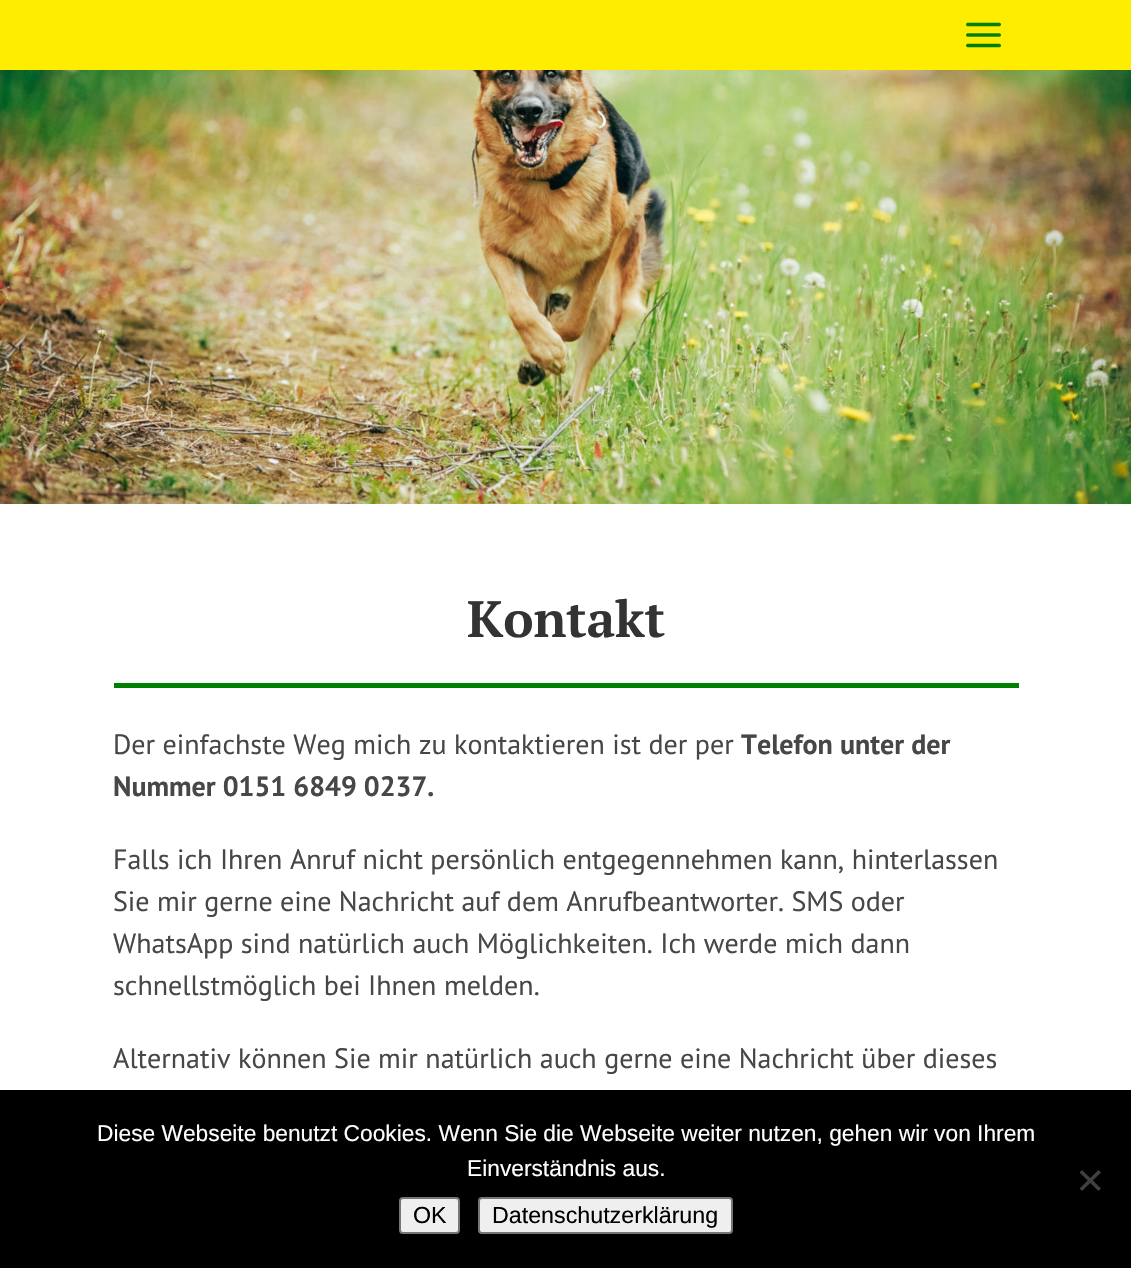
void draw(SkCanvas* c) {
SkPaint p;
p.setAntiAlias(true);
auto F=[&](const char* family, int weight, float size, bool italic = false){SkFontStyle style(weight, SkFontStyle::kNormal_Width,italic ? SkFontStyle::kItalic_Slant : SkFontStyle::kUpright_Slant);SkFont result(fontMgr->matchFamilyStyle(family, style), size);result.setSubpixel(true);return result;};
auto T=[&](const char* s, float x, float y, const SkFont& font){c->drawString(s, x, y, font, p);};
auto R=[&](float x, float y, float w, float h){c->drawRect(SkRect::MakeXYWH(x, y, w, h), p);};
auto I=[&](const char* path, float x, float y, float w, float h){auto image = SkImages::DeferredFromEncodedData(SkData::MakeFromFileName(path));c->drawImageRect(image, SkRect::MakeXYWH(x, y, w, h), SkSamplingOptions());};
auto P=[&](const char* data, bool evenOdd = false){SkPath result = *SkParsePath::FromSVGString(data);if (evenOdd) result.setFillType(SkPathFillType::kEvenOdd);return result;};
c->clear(0xffffffff);
p.setColor(0xfffeed01);
R(0,0,1131,70);
I("1.png",966,22,35,26);
I("2.png",0,70,1131,434);
auto f1 = F("PT Serif",700,51);
p.setColor(0xff333333);
T("Kontakt",467,637,f1);
p.setColor(0xff008000);
R(114,683,905,5);
auto f2 = F("PT Sans",400,28);
p.setColor(0xff474747);
T("Der einfachste Weg mich zu kontaktieren ist der per",113,754,f2);
auto f3 = F("PT Sans",700,28);
T("Telefon unter der",741,754,f3);
T("Nummer 0151 6849 0237.",113,796,f3);
T("Falls ich Ihren Anruf nicht persönlich entgegennehmen kann, hinterlassen",113,869,f2);
T("Sie mir gerne eine Nachricht auf dem Anrufbeantworter. SMS oder",113,911,f2);
T("WhatsApp sind natürlich auch Möglichkeiten. Ich werde mich dann",113,953,f2);
T("schnellstmöglich bei Ihnen melden.",113,995,f2);
T("Alternativ können Sie mir natürlich auch gerne eine Nachricht über dieses",113,1068,f2);
p.setColor(0xff000000);
R(0,1090,1131,178);
auto f4 = F("Liberation Sans",400,22.75);
p.setColor(0xffffffff);
T("Diese Webseite benutzt Cookies. Wenn Sie die Webseite weiter nutzen, gehen wir von Ihrem",97,1141,f4);
T("Einverständnis aus.",467,1176,f4);
p.setColor(0xff404040);
c->drawPath(P("M1098.5 1170l2.5 2.5l-19 18.5l-2.5-2.5z"),p);
c->drawPath(P("M1079.5 1172.5l2.5-2.5l19 18.5l-2.5 2.5z"),p);
p.setColor(0xffefefef);
c->drawRoundRect(SkRect::MakeXYWH(400,1198,59,35),3,3,p);
p.setStroke(true);
p.setStrokeWidth(2);
p.setColor(0xff767676);
c->drawRoundRect(SkRect::MakeXYWH(400,1198,59,35),3,3,p);
auto f5 = F("Liberation Sans",400,23.25);
p.setStroke(false);
p.setColor(0xff000000);
T("OK",413,1223,f5);
p.setColor(0xffefefef);
c->drawRoundRect(SkRect::MakeXYWH(479,1198,253,35),3,3,p);
p.setStroke(true);
p.setColor(0xff767676);
c->drawRoundRect(SkRect::MakeXYWH(479,1198,253,35),3,3,p);
p.setStroke(false);
p.setColor(0xff000000);
T("Datenschutzerklärung",492,1223,f5);
}
